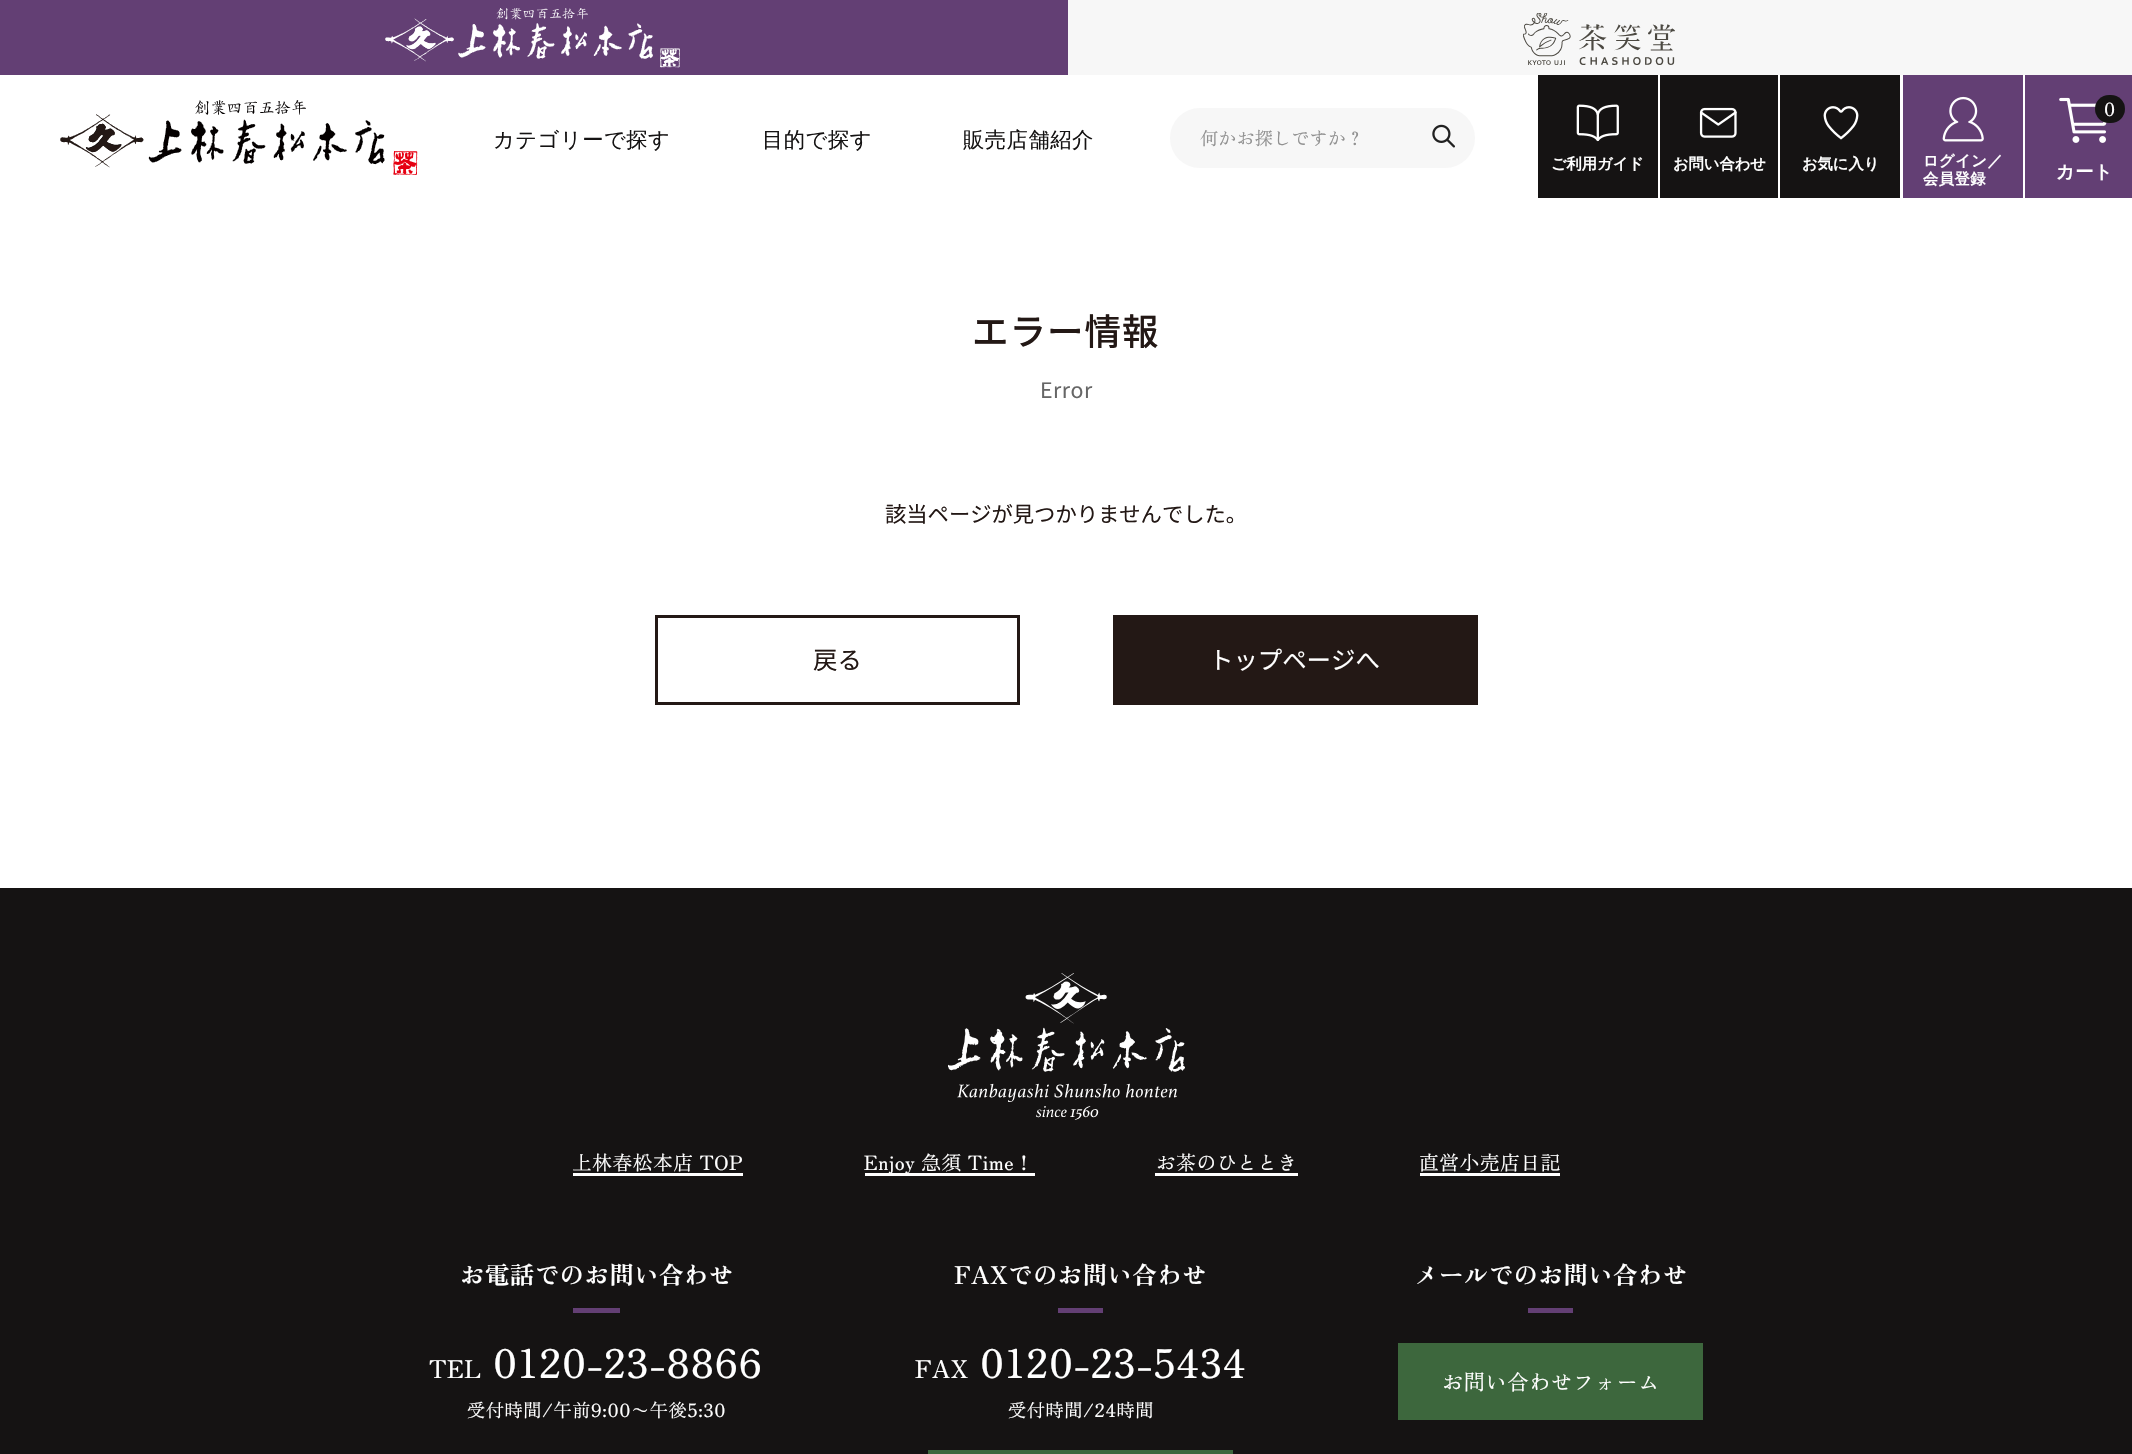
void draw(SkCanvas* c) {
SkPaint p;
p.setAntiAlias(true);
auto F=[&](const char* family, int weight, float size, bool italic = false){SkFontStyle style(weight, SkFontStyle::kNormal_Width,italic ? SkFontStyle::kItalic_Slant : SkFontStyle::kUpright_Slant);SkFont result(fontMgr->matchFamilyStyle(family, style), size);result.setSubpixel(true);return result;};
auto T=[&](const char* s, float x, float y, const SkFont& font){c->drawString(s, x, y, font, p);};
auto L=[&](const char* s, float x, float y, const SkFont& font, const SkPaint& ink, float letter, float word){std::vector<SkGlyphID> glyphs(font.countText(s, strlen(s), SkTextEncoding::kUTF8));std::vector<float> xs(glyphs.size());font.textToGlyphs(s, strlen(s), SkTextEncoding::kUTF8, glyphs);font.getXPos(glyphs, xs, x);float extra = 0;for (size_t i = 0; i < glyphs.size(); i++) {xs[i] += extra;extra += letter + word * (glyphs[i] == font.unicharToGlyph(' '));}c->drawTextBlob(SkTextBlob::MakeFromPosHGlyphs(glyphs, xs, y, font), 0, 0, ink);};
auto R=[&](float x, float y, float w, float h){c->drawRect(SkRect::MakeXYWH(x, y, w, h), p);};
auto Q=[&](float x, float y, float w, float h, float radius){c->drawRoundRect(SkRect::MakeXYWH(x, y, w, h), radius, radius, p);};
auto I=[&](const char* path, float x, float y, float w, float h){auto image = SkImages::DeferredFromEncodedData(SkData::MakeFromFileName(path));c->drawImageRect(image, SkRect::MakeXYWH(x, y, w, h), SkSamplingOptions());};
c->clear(0xffffffff);
p.setColor(0xff633f74);
R(0,0,1068,75);
I("1.png",385,8,295,60);
p.setColor(0xfff7f7f7);
R(1068,0,1064,75);
I("2.png",1523,13,152,52);
I("3.png",60,100,358,75);
auto f1 = F("WenQuanYi Zen Hei",500,21.3);
p.setColor(0xff151313);
L("カテゴリーで探す",493,147,f1,p,.5,0);
L("目的で探す",762,147,f1,p,.5,0);
L("販売店舗紹介",963,147,f1,p,.5,0);
p.setColor(0xfff7f7f7);
Q(1170,108,305,60,30);
auto f2 = F("Zen Old Mincho",400,18.25);
p.setColor(0xff919191);
T("何かお探しですか？",1200,145,f2);
I("4.png",1432,124,23,24);
p.setColor(0xff151313);
R(1538,75,120,123);
I("5.png",1576,104,43,38);
auto f3 = F("WenQuanYi Zen Hei",700,15.25);
p.setColor(0xffffffff);
T("ご利用ガイド",1551,169,f3);
p.setColor(0xff151313);
R(1660,75,118,123);
I("6.png",1699,107,38,31);
p.setColor(0xffffffff);
T("お問い合わせ",1673,169,f3);
p.setColor(0xff151313);
R(1780,75,120,123);
I("7.png",1823,106,36,34);
p.setColor(0xffffffff);
T("お気に入り",1802,169,f3);
p.setColor(0xff633f74);
R(1903,75,120,123);
I("8.png",1942,96,42,46);
p.setColor(0xffffffff);
L("ログイン／",1923,166,f3,p,.5,0);
L("会員登録",1923,184,f3,p,.5,0);
p.setColor(0xff633f74);
R(2025,75,107,123);
I("9.png",2059,97,48,46);
p.setColor(0xff151313);
Q(2095,95,30,28,14);
auto f4 = F("Zen Old Mincho",500,18.25);
p.setColor(0xffffffff);
T("0",2104,116,f4);
auto f5 = F("WenQuanYi Zen Hei",700,18.25);
L("カート",2056,178,f5,p,.5,0);
auto f6 = F("Noto Sans JP",500,36.5);
p.setColor(0xff231815);
L("エラー情報",972,345,f6,p,1,0);
auto f7 = F("Noto Sans JP",400,21.3);
p.setColor(0xff666666);
L("Error",1040,398,f7,p,.5,0);
p.setColor(0xff231815);
T("該当ページが見つかりませんでした。",885,522,f7);
p.setStroke(true);
p.setStrokeWidth(3);
c->drawRect(SkRect::MakeXYWH(656.5,616.5,362,87),p);
auto f8 = F("Noto Sans JP",400,24.4);
p.setStroke(false);
T("戻る",813,669,f8);
R(1113,615,365,90);
p.setColor(0xffffffff);
T("トップページへ",1209,669,f8);
p.setColor(0xff151313);
R(0,888,2132,566);
I("10.png",948,973,237,147);
auto f9 = F("Zen Old Mincho",400,19.75);
p.setColor(0xffffffff);
L("上林春松本店 TOP",572,1170,f9,p,.5,0);
R(573,1173,170,3);
R(865,1173,170,3);
L("Enjoy 急須 Time！",864,1170,f9,p,.5,0);
L("お茶のひととき",1156,1170,f9,p,.5,0);
R(1155,1173,143,3);
L("直営小売店日記",1419,1170,f9,p,.5,0);
R(1420,1173,140,3);
auto f10 = F("Zen Old Mincho",700,24.4);
L("お電話でのお問い合わせ",460,1284,f10,p,.5,0);
p.setColor(0xff633f74);
R(573,1308,47,5);
auto f11 = F("Zen Old Mincho",500,24.4);
p.setColor(0xffffffff);
L("TEL",429,1378,f11,p,.5,0);
auto f12 = F("Zen Old Mincho",500,39.5);
L("0120-23-8866",493,1378,f12,p,.5,0);
L("受付時間/午前9:00〜午後5:30",467,1417,f2,p,.5,0);
L("FAXでのお問い合わせ",954,1284,f10,p,.5,0);
p.setColor(0xff633f74);
R(1058,1308,45,5);
p.setColor(0xffffffff);
L("FAX",915,1378,f11,p,.5,0);
L("0120-23-5434",980,1378,f12,p,.5,0);
L("受付時間/24時間",1008,1417,f2,p,.5,0);
p.setColor(0xff3d673d);
R(928,1450,305,4);
p.setColor(0xffffffff);
L("メールでのお問い合わせ",1414,1284,f10,p,.5,0);
p.setColor(0xff633f74);
R(1528,1308,45,5);
p.setColor(0xff3d673d);
R(1398,1343,305,77);
auto f13 = F("Zen Old Mincho",400,21.3);
p.setColor(0xffffffff);
L("お問い合わせフォーム",1442,1390,f13,p,.5,0);
}
